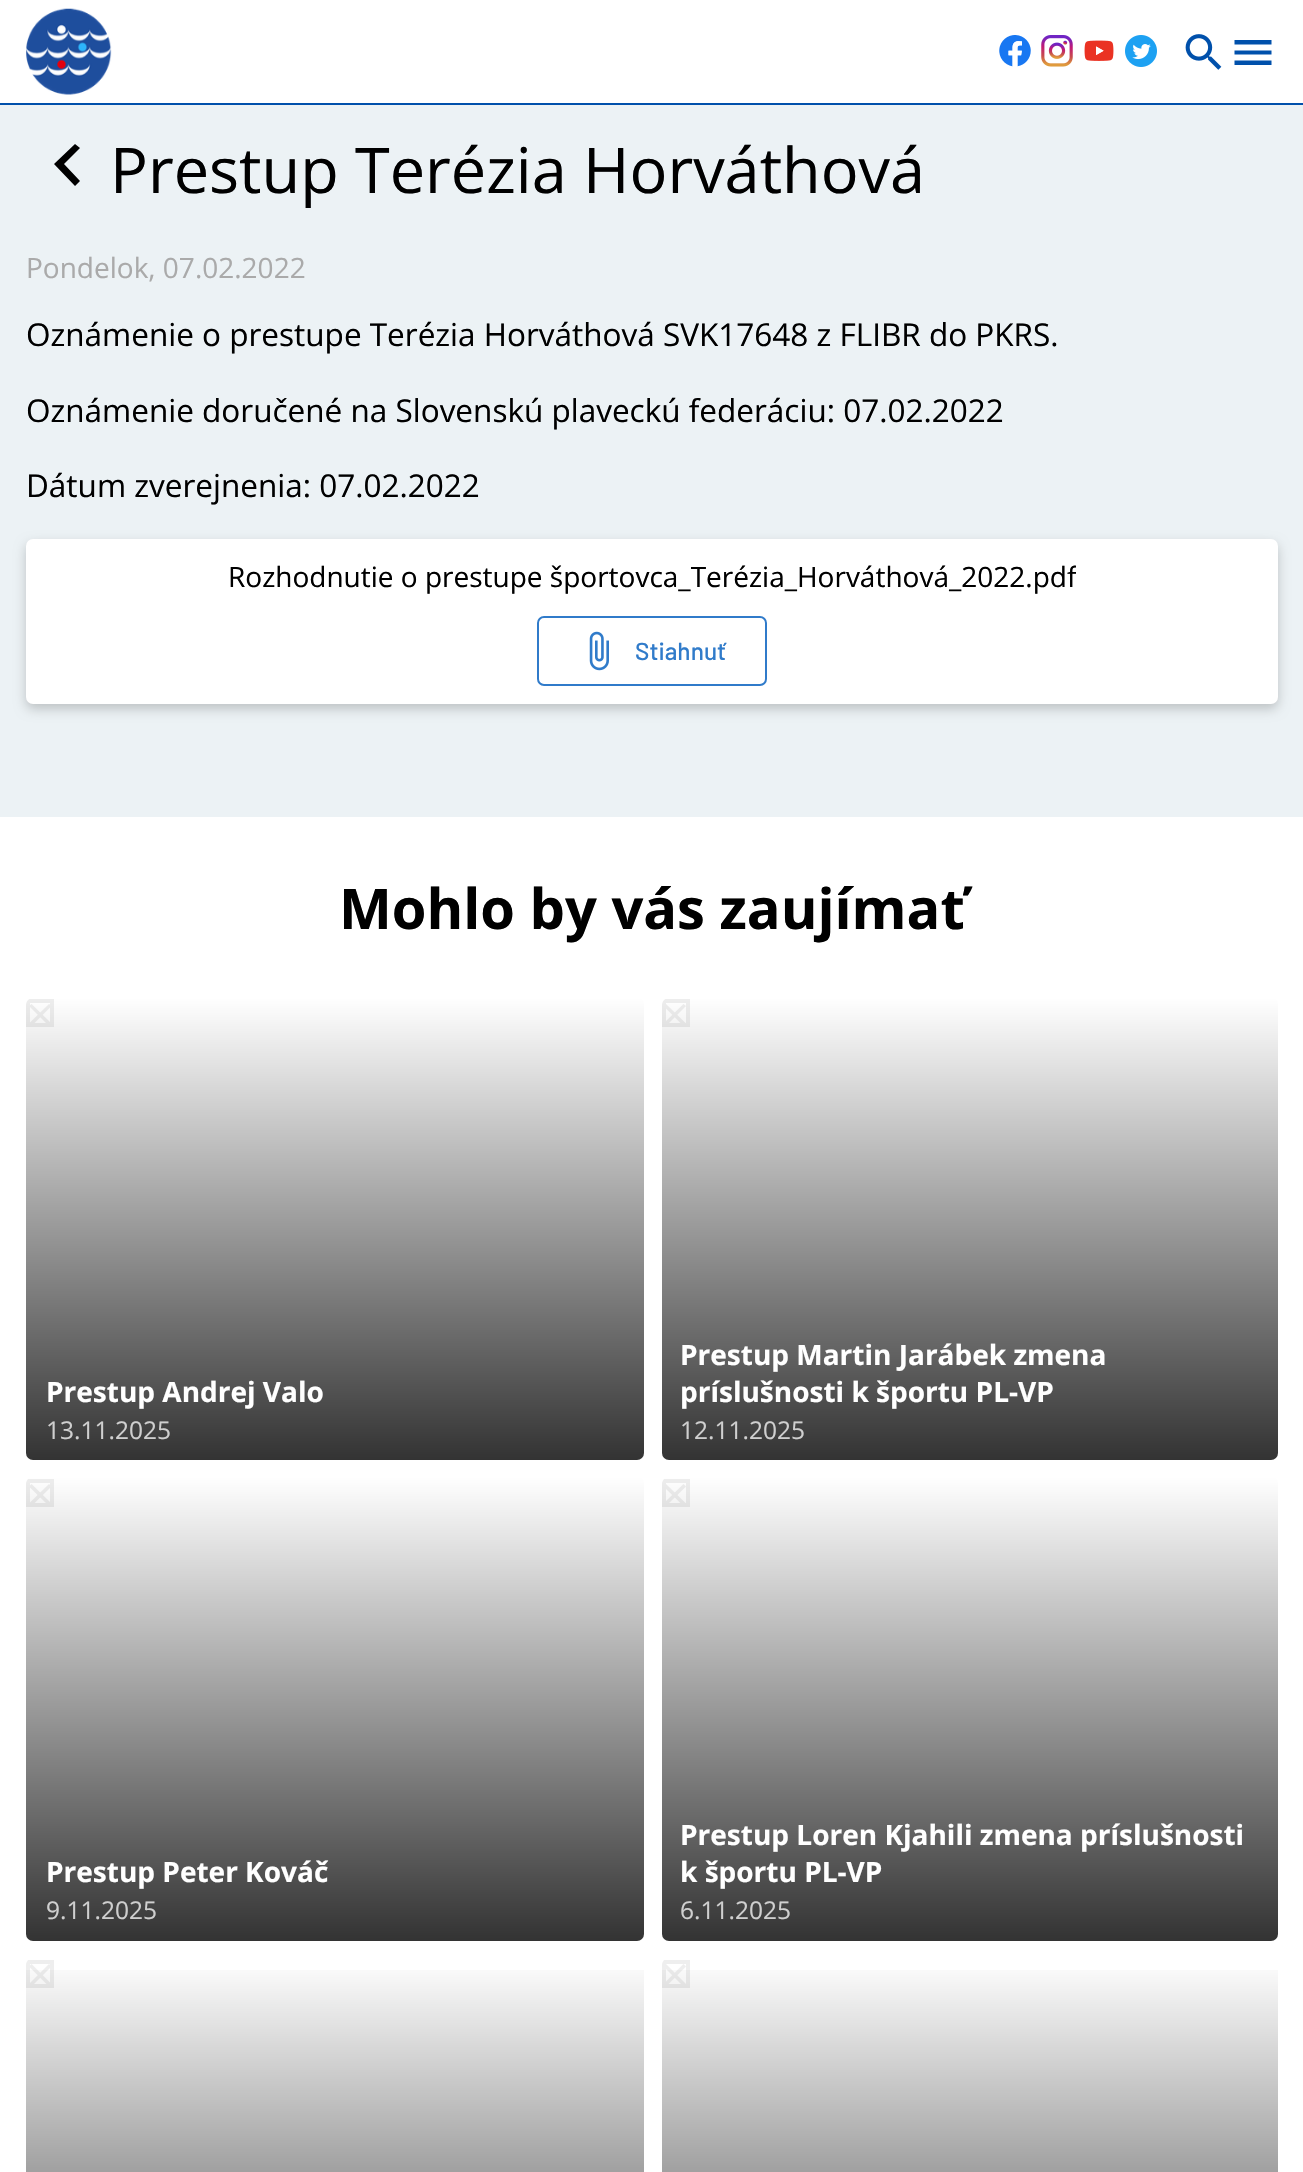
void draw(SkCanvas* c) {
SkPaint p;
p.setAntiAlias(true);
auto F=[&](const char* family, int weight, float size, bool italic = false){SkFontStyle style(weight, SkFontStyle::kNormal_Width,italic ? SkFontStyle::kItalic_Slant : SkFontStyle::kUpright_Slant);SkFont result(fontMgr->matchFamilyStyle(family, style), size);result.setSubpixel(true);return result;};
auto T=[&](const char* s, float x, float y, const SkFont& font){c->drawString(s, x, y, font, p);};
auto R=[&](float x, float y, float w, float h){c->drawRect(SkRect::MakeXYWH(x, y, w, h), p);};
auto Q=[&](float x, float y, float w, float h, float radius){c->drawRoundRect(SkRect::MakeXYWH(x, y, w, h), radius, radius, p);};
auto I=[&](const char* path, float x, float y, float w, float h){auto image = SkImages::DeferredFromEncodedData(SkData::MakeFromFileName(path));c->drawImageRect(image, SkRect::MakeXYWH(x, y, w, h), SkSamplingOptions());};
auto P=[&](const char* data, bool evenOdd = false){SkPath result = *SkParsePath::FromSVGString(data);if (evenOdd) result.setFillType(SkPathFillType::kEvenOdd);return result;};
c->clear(0xffecf2f5);
p.setColor(0xffffffff);
R(0,0,1303,103);
p.setColor(0xff0050ab);
R(0,103,1303,2);
I("1.png",26,8,86,87);
I("2.png",999,35,32,32);
I("3.png",1041,35,32,32);
I("4.png",1084,40,30,21);
I("5.png",1125,35,32,32);
I("6.png",1185,34,37,36);
c->drawPath(P("M1234.5 65h37v-4.5h-37zm0-10.5h37v-4h-37zm0-14.5v4.5h37v-4.5z"),p);
p.setColor(0xff000000);
c->drawPath(P("M80 148l-5-4l-21 20l21 22l5-5l-16-17z"),p);
auto f1 = F("Open Sans",400,63);
T("Prestup Terézia Horváthová",110,193,f1);
auto f2 = F("Open Sans",400,28);
p.setColor(0xffaaaaaa);
T("Pondelok, 07.02.2022",26,278,f2);
auto f3 = F("Open Sans",400,31.5);
p.setColor(0xff000000);
T("Oznámenie o prestupe Terézia Horváthová SVK17648 z FLIBR do PKRS.",26,346,f3);
T("Oznámenie doručené na Slovenskú plaveckú federáciu: 07.02.2022",26,422,f3);
T("Dátum zverejnenia: 07.02.2022",26,497,f3);
p.setColor(0x33000000);
p.setMaskFilter(SkMaskFilter::MakeBlur(kNormal_SkBlurStyle, 6));
c->drawRoundRect(SkRect::MakeXYWH(26,544,1252,165),7,7,p);
p.setMaskFilter(nullptr);
p.setColor(0xffffffff);
Q(26,539,1252,165,7);
c->save();
c->clipRect(SkRect::MakeXYWH(228,557,848,40));
p.setColor(0xff000000);
T("Rozhodnutie o prestupe športovca_Terézia_Horváthová_2022.pdf",228,587,f2);
c->restore();
p.setStroke(true);
p.setStrokeWidth(2);
p.setColor(0xff307bca);
c->drawRoundRect(SkRect::MakeXYWH(538,617,228,68),6,6,p);
I("7.png",589,631,20,40);
auto f4 = F("Barlow",500,24.5);
p.setStroke(false);
T("Stiahnuť",635,660,f4);
p.setColor(0xffffffff);
R(0,817,1303,1355);
auto f5 = F("Open Sans",700,56);
p.setColor(0xff000000);
T("Mohlo by vás zaujímať",339,929,f5);
p.setColor(0xffeeeeee);
c->drawPath(P("M26 1005v22h28v-28h-24.5c-2 1-3.5 3.5-3.5 6zm4-2v20h20v-20z",true),p);
c->drawPath(P("M29 1023.5l20-19.5l2.5 2l-20 20z"),p);
c->drawPath(P("M31.5 1004l20 19.5l-2.5 2.5l-20-20z"),p);
{
const SkColor colors[] = {0x00000000,0xcc000000};
const float stops[] = {0,1};
const SkPoint ends[] = {{335,998}, {335,1460}};
p.setShader(SkGradientShader::MakeLinear(ends, colors, stops, 2, SkTileMode::kClamp));
p.setAlpha(255);
}
Q(26,998,618,462,7);
auto f6 = F("Open Sans",700,28);
p.setShader(nullptr);
p.setColor(0xffffffff);
T("Prestup Andrej Valo",46,1402,f6);
auto f7 = F("Open Sans",400,24.5);
p.setColor(0xffcfcfcf);
T("13.11.2025",46,1439,f7);
p.setColor(0xffeeeeee);
c->drawPath(P("M662 1005v22h28v-28h-24.5c-2 1-3.5 3.5-3.5 6zm4-2v20h20v-20z",true),p);
c->drawPath(P("M663.5 1023.5l20-19.5l2.5 2l-20 20z"),p);
c->drawPath(P("M666 1004l20 19.5l-2.5 2.5l-20-20z"),p);
{
const SkColor colors[] = {0x00000000,0xcc000000};
const float stops[] = {0,1};
const SkPoint ends[] = {{970,998}, {970,1460}};
p.setShader(SkGradientShader::MakeLinear(ends, colors, stops, 2, SkTileMode::kClamp));
p.setAlpha(255);
}
Q(662,998,616,462,7);
p.setShader(nullptr);
p.setColor(0xffffffff);
T("Prestup Martin Jarábek zmena",680,1365,f6);
T("príslušnosti k športu PL-VP",680,1402,f6);
p.setColor(0xffcfcfcf);
T("12.11.2025",680,1439,f7);
p.setColor(0xffeeeeee);
c->drawPath(P("M26 1484v23h28v-28h-26c-1 1.5-2 3-2 5zm4-1v20h20v-20z",true),p);
c->drawPath(P("M29 1503.5l20-19.5l2.5 2.5l-20 19.5z"),p);
c->drawPath(P("M31.5 1484l20 19.5l-2.5 2.5l-20-19.5z"),p);
{
const SkColor colors[] = {0x00000000,0xcc000000};
const float stops[] = {0,1};
const SkPoint ends[] = {{335,1477}, {335,1941}};
p.setShader(SkGradientShader::MakeLinear(ends, colors, stops, 2, SkTileMode::kClamp));
p.setAlpha(255);
}
Q(26,1477,618,464,7);
p.setShader(nullptr);
p.setColor(0xffffffff);
T("Prestup Peter Kováč",46,1882,f6);
p.setColor(0xffcfcfcf);
T("9.11.2025",46,1919,f7);
p.setColor(0xffeeeeee);
c->drawPath(P("M662 1484v23h28v-28h-26c-1 1.5-2 3-2 5zm4-1v20h20v-20z",true),p);
c->drawPath(P("M663.5 1503.5l20-19.5l2.5 2.5l-20 19.5z"),p);
c->drawPath(P("M666 1484l20 19.5l-2.5 2.5l-20-19.5z"),p);
{
const SkColor colors[] = {0x00000000,0xcc000000};
const float stops[] = {0,1};
const SkPoint ends[] = {{970,1477}, {970,1941}};
p.setShader(SkGradientShader::MakeLinear(ends, colors, stops, 2, SkTileMode::kClamp));
p.setAlpha(255);
}
Q(662,1477,616,464,7);
p.setShader(nullptr);
p.setColor(0xffffffff);
T("Prestup Loren Kjahili zmena príslušnosti",680,1845,f6);
T("k športu PL-VP",680,1882,f6);
p.setColor(0xffcfcfcf);
T("6.11.2025",680,1919,f7);
p.setColor(0xffeeeeee);
c->drawPath(P("M26 1965v23h28v-28h-26c-1 1.5-2 3-2 5zm4-1v20h20v-20z",true),p);
c->drawPath(P("M29 1984l20-20l2.5 2.5l-20 20z"),p);
c->drawPath(P("M31.5 1964l20 20l-2.5 2.5l-20-20z"),p);
{
const SkColor colors[] = {0x00000000,0xcc000000};
const float stops[] = {0,1};
const SkPoint ends[] = {{335,1958}, {335,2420}};
p.setShader(SkGradientShader::MakeLinear(ends, colors, stops, 2, SkTileMode::kClamp));
p.setAlpha(255);
}
R(26,1970,618,202);
p.setShader(nullptr);
p.setColor(0xffeeeeee);
c->drawPath(P("M662 1965v23h28v-28h-26c-1 1.5-2 3-2 5zm4-1v20h20v-20z",true),p);
c->drawPath(P("M663.5 1984l20-20l2.5 2.5l-20 20z"),p);
c->drawPath(P("M666 1964l20 20l-2.5 2.5l-20-20z"),p);
{
const SkColor colors[] = {0x00000000,0xcc000000};
const float stops[] = {0,1};
const SkPoint ends[] = {{970,1958}, {970,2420}};
p.setShader(SkGradientShader::MakeLinear(ends, colors, stops, 2, SkTileMode::kClamp));
p.setAlpha(255);
}
R(662,1970,616,202);
}
